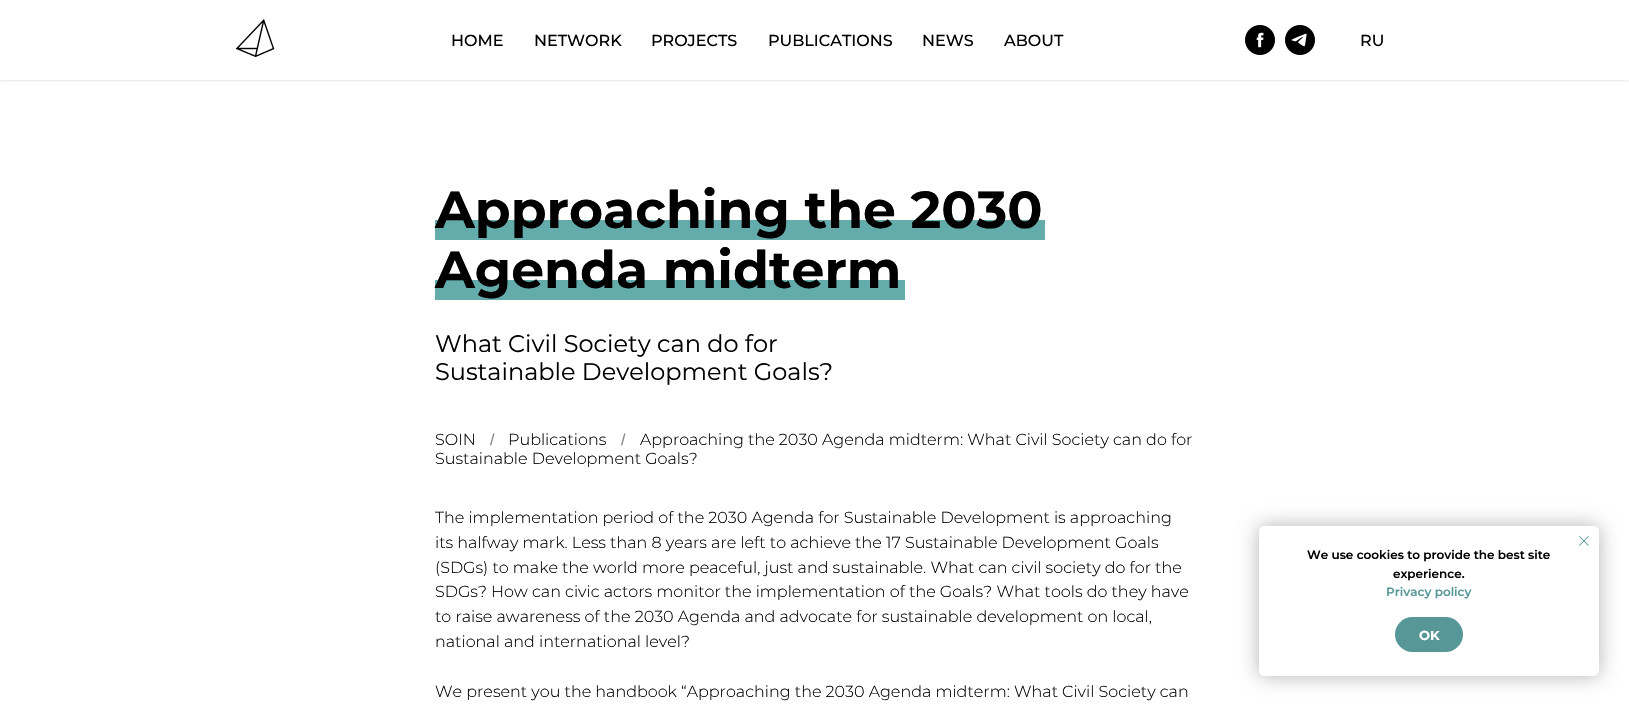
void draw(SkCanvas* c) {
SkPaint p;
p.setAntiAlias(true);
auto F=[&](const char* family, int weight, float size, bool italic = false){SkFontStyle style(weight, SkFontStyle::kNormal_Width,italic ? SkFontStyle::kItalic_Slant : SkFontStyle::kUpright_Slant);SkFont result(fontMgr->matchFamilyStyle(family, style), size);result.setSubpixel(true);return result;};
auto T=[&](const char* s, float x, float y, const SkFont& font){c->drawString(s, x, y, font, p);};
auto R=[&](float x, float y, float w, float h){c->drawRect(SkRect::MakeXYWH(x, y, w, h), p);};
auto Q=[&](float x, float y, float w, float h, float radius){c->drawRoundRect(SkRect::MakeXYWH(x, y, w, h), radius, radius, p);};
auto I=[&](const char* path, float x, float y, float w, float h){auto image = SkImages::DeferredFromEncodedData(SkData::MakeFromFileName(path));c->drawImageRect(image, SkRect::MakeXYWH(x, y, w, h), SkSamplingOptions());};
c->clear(0xffffffff);
c->save();
c->clipRect(SkRect::MakeXYWH(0,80,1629,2));
p.setColor(0x1a000000);
p.setMaskFilter(SkMaskFilter::MakeBlur(kNormal_SkBlurStyle, 1.5));
c->drawRect(SkRect::MakeXYWH(0,1,1629,80),p);
p.setMaskFilter(nullptr);
c->restore();
I("1.png",235,19,40,38);
auto f1 = F("Montserrat",500,16);
p.setColor(0xff000000);
T("HOME",451,46,f1);
T("NETWORK",534,46,f1);
T("PROJECTS",651,46,f1);
T("PUBLICATIONS",768,46,f1);
T("NEWS",922,46,f1);
T("ABOUT",1004,46,f1);
I("2.png",1245,25,30,30);
I("3.png",1285,25,30,30);
T("RU",1360,46,f1);
p.setColor(0xff64abab);
R(435,220,610,20);
auto f2 = F("Montserrat",700,52);
p.setColor(0xff000000);
T("Approaching the 2030",435,228,f2);
p.setColor(0xff64abab);
R(435,280,470,20);
p.setColor(0xff000000);
T("Agenda midterm",435,288,f2);
auto f3 = F("Montserrat",400,24);
T("What Civil Society can do for",435,352,f3);
T("Sustainable Development Goals?",435,380,f3);
auto f4 = F("Montserrat",300,16);
T("SOIN",435,445,f4);
auto f5 = F("Liberation Sans",400,16);
p.setColor(0xff858585);
T("/",490,445,f5);
p.setColor(0xff000000);
T("Publications",508,445,f4);
p.setColor(0xff858585);
T("/",621,445,f5);
p.setColor(0xff000000);
T("Approaching the 2030 Agenda midterm: What Civil Society can do for",640,445,f4);
T("Sustainable Development Goals?",435,464,f4);
T("The implementation period of the 2030 Agenda for Sustainable Development is approaching",435,523,f4);
T("its halfway mark. Less than 8 years are left to achieve the 17 Sustainable Development Goals",435,548,f4);
T("(SDGs) to make the world more peaceful, just and sustainable. What can civil society do for the",435,573,f4);
T("SDGs? How can civic actors monitor the implementation of the Goals? What tools do they have",435,597,f4);
T("to raise awareness of the 2030 Agenda and advocate for sustainable development on local,",435,622,f4);
T("national and international level?",435,647,f4);
T("We present you the handbook “Approaching the 2030 Agenda midterm: What Civil Society can",435,697,f4);
p.setColor(0x4d000000);
p.setMaskFilter(SkMaskFilter::MakeBlur(kNormal_SkBlurStyle, 10));
c->drawRoundRect(SkRect::MakeXYWH(1259,526,340,150),5,5,p);
p.setMaskFilter(nullptr);
p.setColor(0xffffffff);
Q(1259,526,340,150,5);
I("4.png",1579,536,10,10);
auto f6 = F("Montserrat",600,12);
p.setColor(0xff000000);
T("We use cookies to provide the best site",1307,559,f6);
T("experience.",1393,578,f6);
p.setColor(0xff579798);
T("Privacy policy",1386,596,f6);
Q(1395,617,68,35,17.5);
auto f7 = F("Montserrat",700,13);
p.setColor(0xffffffff);
T("OK",1419,640,f7);
}
